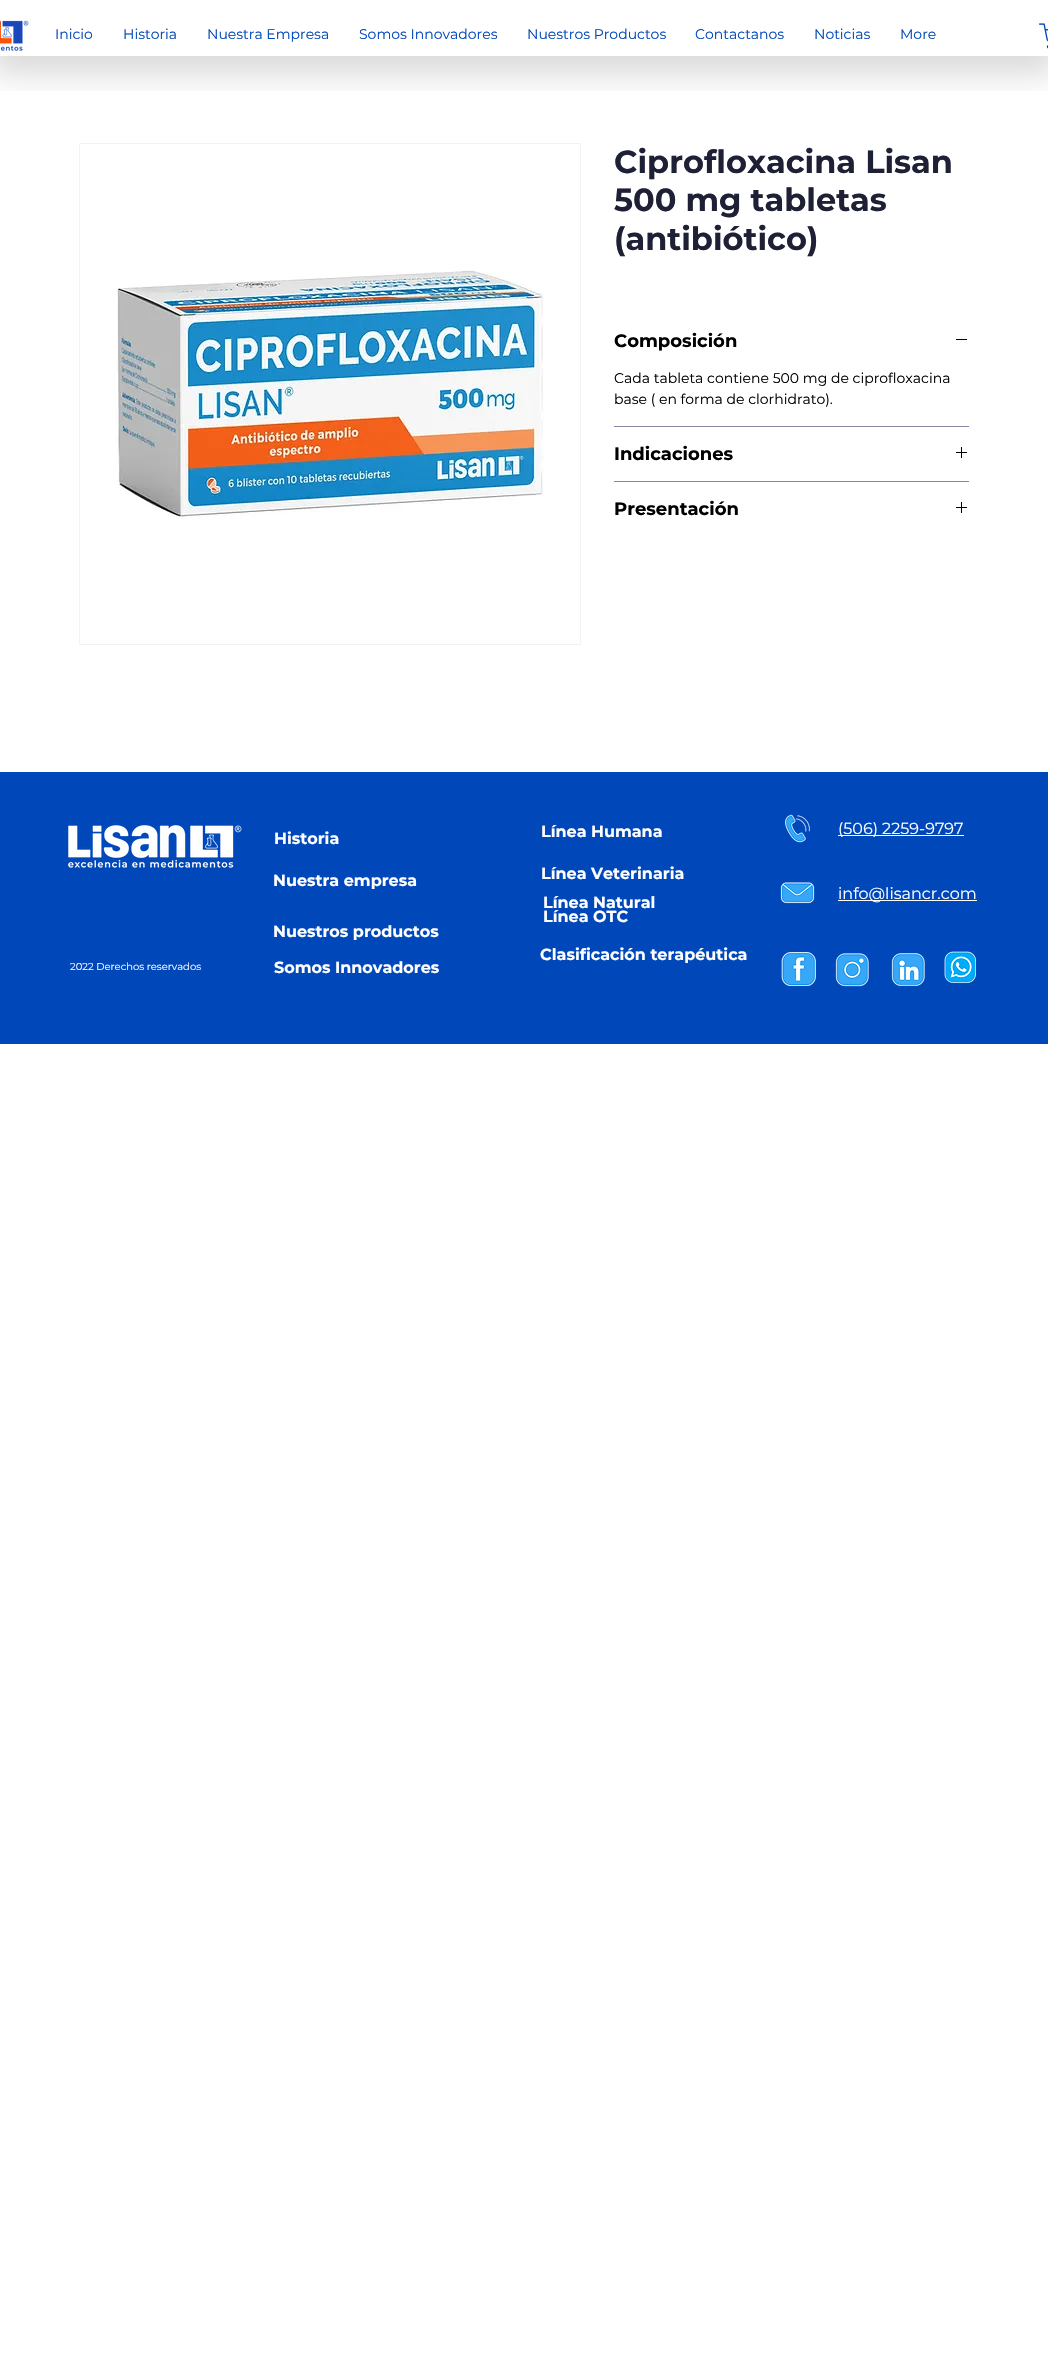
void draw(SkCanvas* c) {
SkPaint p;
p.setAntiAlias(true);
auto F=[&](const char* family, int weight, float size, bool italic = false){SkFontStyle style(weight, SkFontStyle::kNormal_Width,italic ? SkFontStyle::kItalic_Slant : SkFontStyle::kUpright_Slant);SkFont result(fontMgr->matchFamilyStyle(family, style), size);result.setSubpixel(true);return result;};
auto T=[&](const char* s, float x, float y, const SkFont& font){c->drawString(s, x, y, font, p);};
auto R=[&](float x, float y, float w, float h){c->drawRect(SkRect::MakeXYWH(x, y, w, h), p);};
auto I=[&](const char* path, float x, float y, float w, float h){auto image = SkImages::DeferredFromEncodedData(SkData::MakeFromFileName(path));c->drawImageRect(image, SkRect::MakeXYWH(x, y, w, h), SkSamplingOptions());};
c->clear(0xffffffff);
c->save();
c->clipRect(SkRect::MakeXYWH(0,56,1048,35));
p.setColor(0x24000000);
p.setMaskFilter(SkMaskFilter::MakeBlur(kNormal_SkBlurStyle, 15));
c->drawRect(SkRect::MakeXYWH(-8,3,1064,72),p);
p.setMaskFilter(nullptr);
c->restore();
I("1.png",0,20,29,31);
auto f1 = F("Montserrat",400,14);
p.setColor(0xff0047ba);
T("Inicio",55,39,f1);
T("Historia",123,39,f1);
T("Nuestra Empresa",207,39,f1);
T("Somos Innovadores",359,39,f1);
T("Nuestros Productos",527,39,f1);
T("Contactanos",695,39,f1);
T("Noticias",814,39,f1);
T("More",900,39,f1);
I("2.png",1039,23,9,26);
p.setStroke(true);
p.setStrokeWidth(1);
p.setColor(0xfff3f3f3);
c->drawRect(SkRect::MakeXYWH(79.5,143.5,501,501),p);
I("3.png",116,270,428,249);
auto f2 = F("Montserrat",700,32);
p.setStroke(false);
p.setColor(0xff1e2036);
T("Ciprofloxacina Lisan",614,173,f2);
T("500 mg tabletas",614,211,f2);
T("(antibiótico)",614,250,f2);
p.setColor(0xff8688a6);
R(614,426,355,1);
auto f3 = F("Montserrat",700,18);
p.setColor(0xff000000);
T("Composición",614,347,f3);
R(956,339,11,1);
T("Cada tableta contiene 500 mg de ciprofloxacina",614,383,f1);
T("base ( en forma de clorhidrato).",614,404,f1);
p.setColor(0xff8688a6);
R(614,481,355,1);
p.setColor(0xff000000);
T("Indicaciones",614,460,f3);
I("4.png",956,447,11,11);
T("Presentación",614,515,f3);
I("4.png",956,502,11,11);
p.setColor(0xff0047ba);
R(0,772,1048,272);
I("5.png",68,825,174,43);
auto f4 = F("Montserrat",700,16);
p.setColor(0xffffffff);
T("Historia",274,844,f4);
T("Línea Humana",541,837,f4);
I("6.png",785,814,25,29);
R(838,835,126,1);
auto f5 = F("Montserrat",400,16);
T("(506) 2259-9797",838,834,f5);
T("Nuestra empresa",273,886,f4);
T("Línea Veterinaria",541,879,f4);
I("7.png",780,882,35,22);
R(838,900,139,1);
T("info@lisancr.com",838,899,f5);
T("Línea Natural",543,908,f4);
T("Nuestros productos",273,937,f4);
auto f6 = F("Montserrat",400,10);
T("2022 Derechos reservados",70,970,f6);
T("Somos Innovadores",274,973,f4);
I("8.png",781,952,35,34);
I("9.png",835,953,34,34);
I("10.png",891,953,34,33);
T("Línea OTC",543,922,f4);
T("Clasificación terapéutica",540,960,f4);
I("11.png",944,951,32,33);
}
